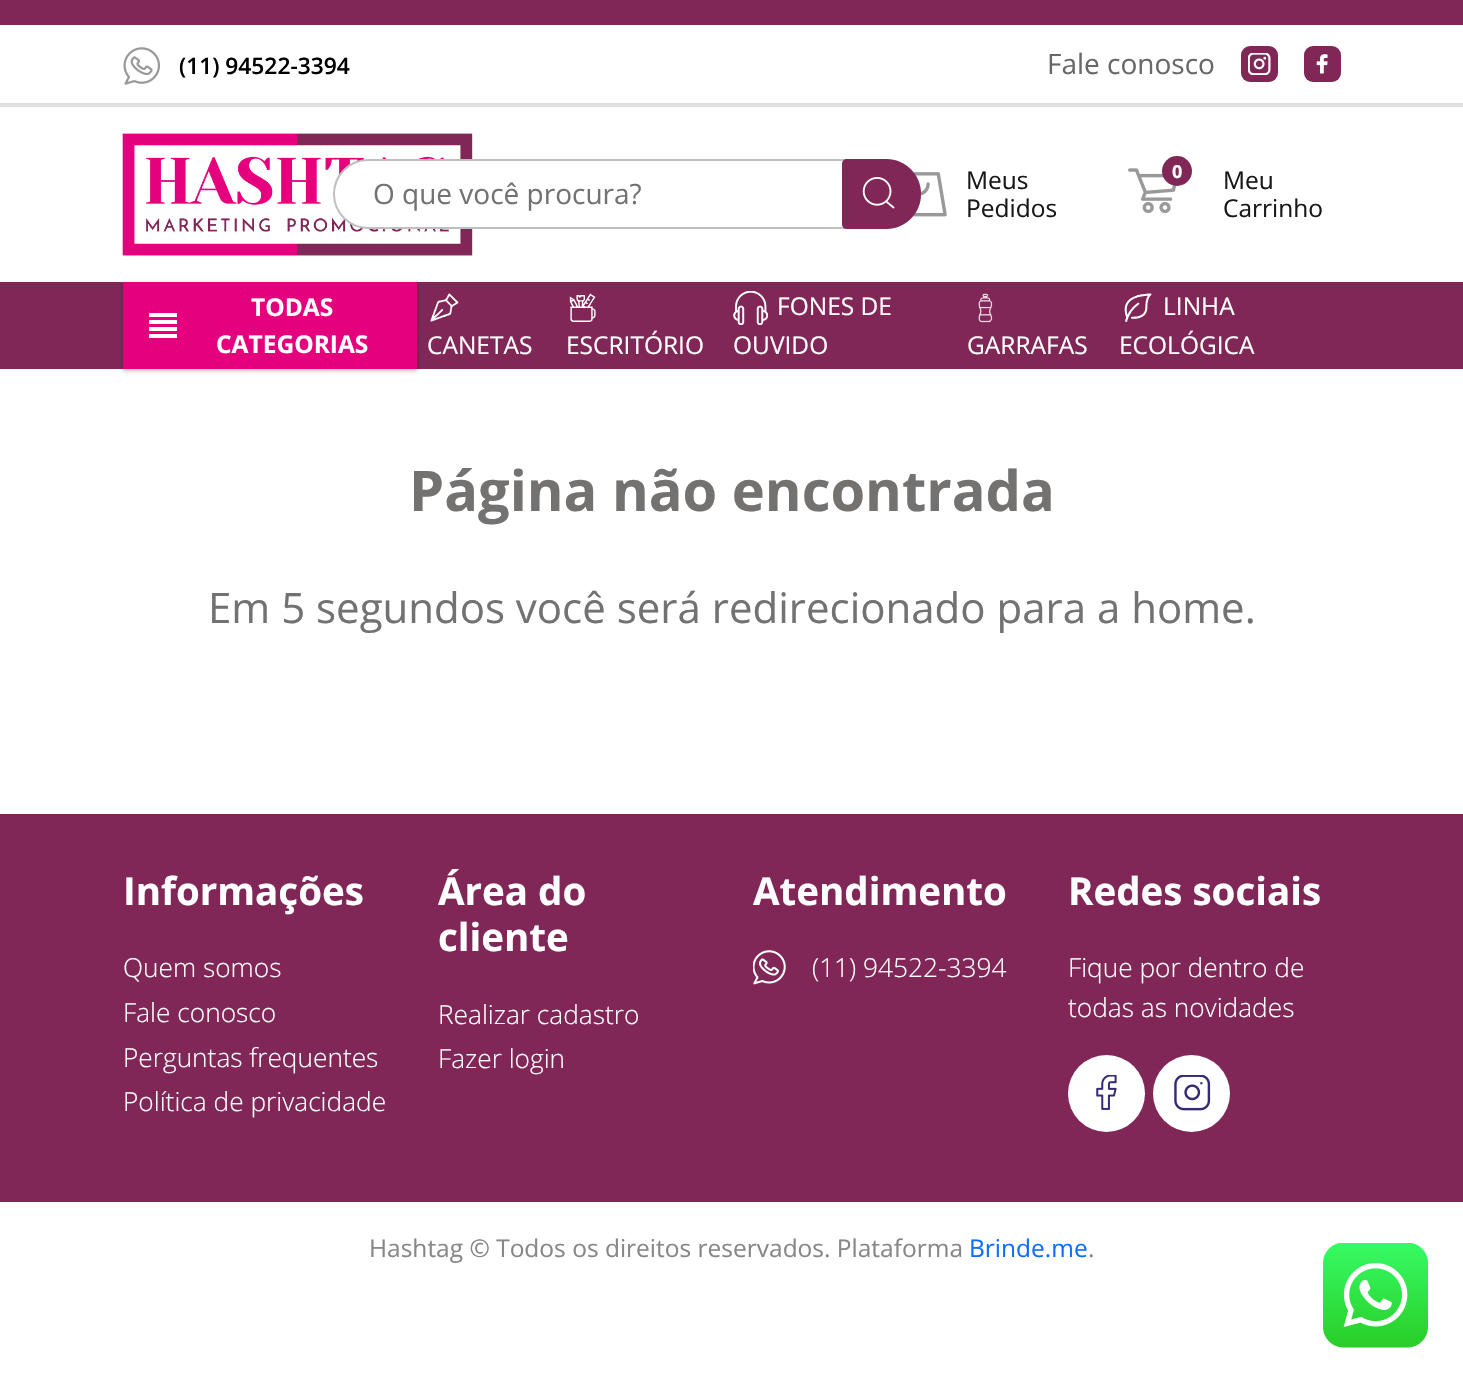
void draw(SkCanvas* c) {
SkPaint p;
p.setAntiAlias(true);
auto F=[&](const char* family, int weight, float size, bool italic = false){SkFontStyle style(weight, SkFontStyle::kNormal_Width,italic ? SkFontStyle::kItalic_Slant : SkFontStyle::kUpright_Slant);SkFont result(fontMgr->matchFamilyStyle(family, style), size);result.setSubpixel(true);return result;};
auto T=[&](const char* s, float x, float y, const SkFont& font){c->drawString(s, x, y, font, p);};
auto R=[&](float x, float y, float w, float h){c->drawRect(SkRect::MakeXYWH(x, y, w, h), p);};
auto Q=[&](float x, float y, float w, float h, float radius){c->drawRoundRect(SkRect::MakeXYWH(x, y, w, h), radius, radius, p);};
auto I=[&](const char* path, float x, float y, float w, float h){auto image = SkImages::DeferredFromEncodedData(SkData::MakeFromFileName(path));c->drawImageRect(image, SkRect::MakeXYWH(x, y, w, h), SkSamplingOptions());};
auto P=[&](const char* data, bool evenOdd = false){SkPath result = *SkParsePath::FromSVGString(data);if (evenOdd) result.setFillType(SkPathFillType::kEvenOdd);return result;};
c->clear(0xffffffff);
p.setColor(0xff802758);
R(0,0,1463,25);
p.setColor(0xffe0e0e0);
R(0,103,1463,4);
I("1.png",123,47,37,38);
auto f1 = F("Open Sans",600,22.75);
p.setColor(0xff000000);
T("(11) 94522-3394",179,74,f1);
auto f2 = F("Open Sans",400,28);
p.setColor(0xff686868);
T("Fale conosco",1047,74,f2);
p.setColor(0xff802758);
Q(1241,46,37,36,9);
I("2.png",1248,53,23,22);
Q(1304,46,37,36,9);
I("3.png",1316,54,12,20);
I("4.png",122,133,351,123);
I("6.png",912,172,35,45);
p.setColor(0xffffffff);
c->drawRoundRect(SkRect::MakeXYWH(334,160,586,68),34,34,p);
p.setStroke(true);
p.setStrokeWidth(2);
p.setColor(0xffbfbfbf);
c->drawRoundRect(SkRect::MakeXYWH(334,160,586,68),34,34,p);
p.setStroke(false);
p.setColor(0xff737271);
T("O que você procura?",373,204,f2);
p.setColor(0xff802758);
c->drawPath(P("M847 159h39c19.5 0 35 15.5 35 35c0 19.5-15.5 35-35 35h-39c-3 0-5-2-5-5v-60c0-3 2-5 5-5z"),p);
I("5.png",862,177,33,32);
auto f3 = F("Open Sans",400,24.5);
p.setColor(0xff181818);
T("Meus",966,189,f3);
T("Pedidos",966,217,f3);
I("7.png",1128,168,49,46);
p.setColor(0xff802758);
c->drawCircle(1177,171,15,p);
auto f4 = F("Open Sans",700,18);
p.setColor(0xffffffff);
T("0",1172,178,f4);
p.setColor(0xff181818);
T("Meu",1223,189,f3);
T("Carrinho",1223,217,f3);
p.setColor(0xff802758);
R(0,282,1463,87);
p.setColor(0x3d000000);
p.setMaskFilter(SkMaskFilter::MakeBlur(kNormal_SkBlurStyle, 2));
c->drawRect(SkRect::MakeXYWH(123,284,294,87),p);
p.setMaskFilter(nullptr);
p.setColor(0xffe5007e);
R(123,282,294,87);
p.setColor(0xffffffff);
R(149,313,28,4);
R(149,320,28,4);
R(149,327,28,4);
R(149,334,28,4);
auto f5 = F("Open Sans",700,24.5);
T("TODAS",251,316,f5);
T("CATEGORIAS",216,353,f5);
I("8.png",430,293,29,29);
T("CANETAS",427,354,f3);
I("9.png",569,293,27,29);
T("ESCRITÓRIO",566,354,f3);
I("10.png",733,291,35,34);
T("FONES DE",777,315,f3);
T("OUVIDO",733,354,f3);
I("11.png",978,293,15,30);
T("GARRAFAS",967,354,f3);
I("12.png",1124,293,28,29);
T("LINHA",1163,315,f3);
T("ECOLÓGICA",1119,354,f3);
auto f6 = F("Open Sans",700,56);
p.setColor(0xff737271);
T("Página não encontrada",409,511,f6);
auto f7 = F("Open Sans",400,42);
T("Em 5 segundos você será redirecionado para a home.",208,623,f7);
p.setColor(0xff802758);
R(0,814,1463,388);
auto f8 = F("Open Sans",700,38.5);
p.setColor(0xffffffff);
T("Informações",123,905,f8);
auto f9 = F("Open Sans",300,26.25);
T("Quem somos",123,977,f9);
T("Fale conosco",123,1022,f9);
T("Perguntas frequentes",123,1067,f9);
T("Política de privacidade",123,1111,f9);
T("Área do",438,905,f8);
T("cliente",438,951,f8);
T("Realizar cadastro",438,1024,f9);
T("Fazer login",438,1068,f9);
T("Atendimento",753,905,f8);
I("13.png",753,950,33,35);
T("(11) 94522-3394",812,977,f9);
T("Redes sociais",1068,905,f8);
T("Fique por dentro de",1068,977,f9);
T("todas as novidades",1068,1017,f9);
c->drawCircle(1106.5,1093.5,38.5,p);
I("14.png",1096,1075,21,35);
c->drawCircle(1191.5,1093.5,38.5,p);
I("15.png",1174,1075,37,36);
p.setColor(0xff878787);
T("Hashtag © Todos os direitos reservados. Plataforma",369,1257,f3);
p.setColor(0xff0d6efd);
T("Brinde.me",969,1257,f3);
p.setColor(0xff878787);
T(".",1088,1257,f3);
I("16.png",1323,1243,105,105);
}
